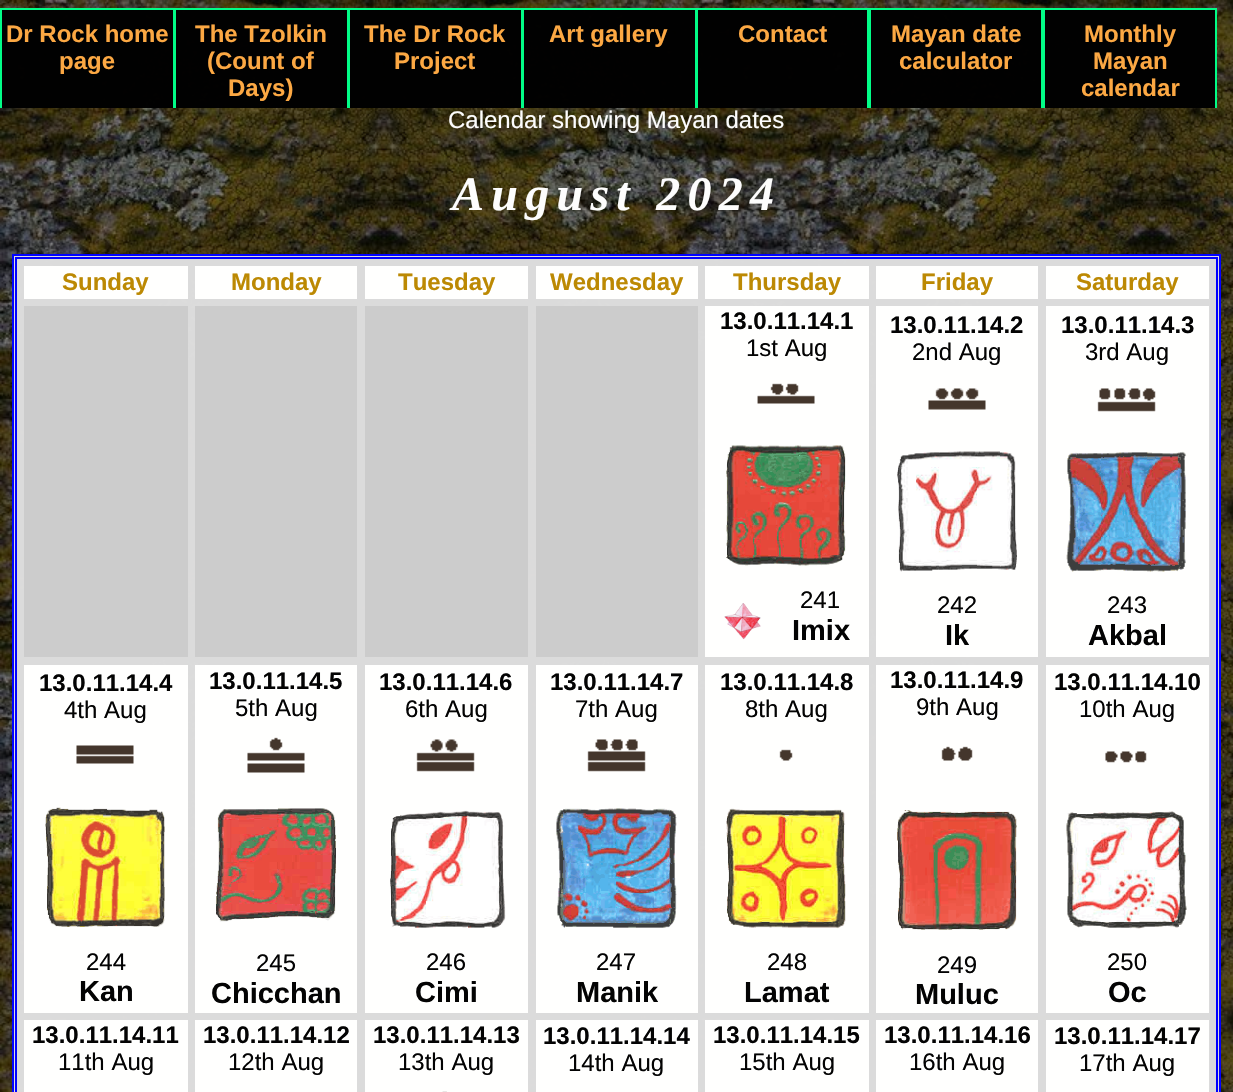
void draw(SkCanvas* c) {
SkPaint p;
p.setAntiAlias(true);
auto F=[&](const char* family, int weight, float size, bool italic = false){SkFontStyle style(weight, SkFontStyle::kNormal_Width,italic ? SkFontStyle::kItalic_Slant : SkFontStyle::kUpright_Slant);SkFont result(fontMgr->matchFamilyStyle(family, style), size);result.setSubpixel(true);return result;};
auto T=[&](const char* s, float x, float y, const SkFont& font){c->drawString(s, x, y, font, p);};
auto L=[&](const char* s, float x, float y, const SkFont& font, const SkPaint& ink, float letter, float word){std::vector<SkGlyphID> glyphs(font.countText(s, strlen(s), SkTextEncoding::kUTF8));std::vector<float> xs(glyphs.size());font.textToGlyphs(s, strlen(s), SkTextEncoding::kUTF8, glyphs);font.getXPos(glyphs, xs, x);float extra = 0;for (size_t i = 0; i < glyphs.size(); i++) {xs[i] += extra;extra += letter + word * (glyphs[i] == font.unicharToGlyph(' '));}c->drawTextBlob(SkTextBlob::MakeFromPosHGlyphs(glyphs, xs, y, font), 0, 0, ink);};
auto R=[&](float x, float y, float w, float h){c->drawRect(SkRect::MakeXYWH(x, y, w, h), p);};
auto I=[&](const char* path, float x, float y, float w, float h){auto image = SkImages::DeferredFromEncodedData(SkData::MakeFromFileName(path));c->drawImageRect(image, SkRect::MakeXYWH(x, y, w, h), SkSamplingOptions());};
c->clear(0xffffffff);
I("1.png",0,0,1233,1092);
p.setColor(0xfc000000);
R(2,9,171,99);
p.setColor(0xfc00ff88);
R(0,8,174,2);
R(173,8,2,100);
R(0,8,2,100);
auto f1 = F("Liberation Sans",700,24);
p.setColor(0xfffca843);
T("Dr Rock home",6,42,f1);
T("page",59,69,f1);
p.setColor(0xfc000000);
R(176,9,171,99);
p.setColor(0xfc00ff88);
R(174,8,174,2);
R(347,8,2,100);
R(175,8,1,100);
p.setColor(0xfffca843);
T("The Tzolkin",195,42,f1);
T("(Count of",207,69,f1);
T("Days)",228,96,f1);
p.setColor(0xfc000000);
R(350,9,171,99);
p.setColor(0xfc00ff88);
R(348,8,174,2);
R(521,8,2,100);
R(349,8,1,100);
p.setColor(0xfffca843);
T("The Dr Rock",364,42,f1);
T("Project",394,69,f1);
p.setColor(0xfc000000);
R(524,9,171,99);
p.setColor(0xfc00ff88);
R(522,8,174,2);
R(695,8,2,100);
R(523,8,1,100);
p.setColor(0xfffca843);
T("Art gallery",549,42,f1);
p.setColor(0xfc000000);
R(698,9,169,99);
p.setColor(0xfc00ff88);
R(696,8,173,2);
R(867,8,2,100);
R(697,8,1,100);
p.setColor(0xfffca843);
T("Contact",738,42,f1);
p.setColor(0xfc000000);
R(870,9,171,99);
p.setColor(0xfc00ff88);
R(869,8,174,2);
R(1041,8,2,100);
R(869,8,2,100);
p.setColor(0xfffca843);
T("Mayan date",891,42,f1);
T("calculator",899,69,f1);
p.setColor(0xfc000000);
R(1044,9,171,99);
p.setColor(0xfc00ff88);
R(1043,8,174,2);
R(1215,8,2,100);
R(1043,8,2,100);
p.setColor(0xfffca843);
T("Monthly",1084,42,f1);
T("Mayan",1093,69,f1);
T("calendar",1081,96,f1);
auto f2 = F("Liberation Sans",400,24);
p.setColor(0xfffdfdfd);
T("Calendar showing Mayan dates",448,128,f2);
auto f3 = F("Liberation Serif",700,48,true);
L("August 2024",452,210,f3,p,7.25,0);
p.setColor(0xfcdddddd);
c->drawRect(SkRect::MakeXYWH(13,255,1207,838),p);
p.setStroke(true);
p.setStrokeWidth(2);
p.setColor(0xff0202ff);
c->drawRect(SkRect::MakeXYWH(13,255,1207,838),p);
c->drawRect(SkRect::MakeXYWH(16,258,1201,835),p);
p.setStroke(false);
p.setColor(0xfffffffe);
R(24,266,164,33);
p.setColor(0xffbc8903);
T("Sunday",62,290,f1);
p.setColor(0xfffffffe);
R(195,266,162,33);
p.setColor(0xffbc8903);
T("Monday",231,290,f1);
p.setColor(0xfffffffe);
R(365,266,163,33);
p.setColor(0xffbc8903);
T("Tuesday",398,290,f1);
p.setColor(0xfffffffe);
R(536,266,162,33);
p.setColor(0xffbc8903);
T("Wednesday",550,290,f1);
p.setColor(0xfffffffe);
R(705,266,164,33);
p.setColor(0xffbc8903);
T("Thursday",733,290,f1);
p.setColor(0xfffffffe);
R(876,266,162,33);
p.setColor(0xffbc8903);
T("Friday",921,290,f1);
p.setColor(0xfffffffe);
R(1046,266,163,33);
p.setColor(0xffbc8903);
T("Saturday",1076,290,f1);
p.setColor(0xffcccccc);
R(24,306,164,351);
R(195,306,162,351);
R(365,306,163,351);
R(536,306,162,351);
p.setColor(0xfffffffe);
R(705,306,164,351);
p.setColor(0xff030303);
T("13.0.11.14.1",720,329,f1);
T("1st Aug",746,356,f2);
I("2.png",757,383,58,21);
I("3.png",726,445,120,121);
T("241",800,608,f2);
I("4.png",724,603,37,37);
auto f4 = F("Liberation Sans",700,29);
T("Imix",792,640,f4);
p.setColor(0xfffffffe);
R(876,306,162,351);
p.setColor(0xff030303);
T("13.0.11.14.2",890,333,f1);
T("2nd Aug",912,360,f2);
I("5.png",928,388,58,22);
I("6.png",897,451,120,121);
T("242",937,613,f2);
T("Ik",945,645,f4);
p.setColor(0xfffffffe);
R(1046,306,163,351);
p.setColor(0xff030303);
T("13.0.11.14.3",1061,333,f1);
T("3rd Aug",1085,360,f2);
I("7.png",1097,388,59,24);
I("8.png",1066,451,121,121);
T("243",1107,613,f2);
T("Akbal",1088,645,f4);
p.setColor(0xfffffffe);
R(24,665,164,348);
p.setColor(0xff030303);
T("13.0.11.14.4",39,691,f1);
T("4th Aug",64,718,f2);
I("9.png",76,745,58,19);
I("10.png",45,807,120,120);
T("244",86,970,f2);
T("Kan",79,1001,f4);
p.setColor(0xfffffffe);
R(195,665,162,348);
p.setColor(0xff030303);
T("13.0.11.14.5",209,689,f1);
T("5th Aug",235,716,f2);
I("11.png",247,737,58,36);
I("12.png",216,808,120,114);
T("245",256,971,f2);
T("Chicchan",211,1003,f4);
p.setColor(0xfffffffe);
R(365,665,163,348);
p.setColor(0xff030303);
T("13.0.11.14.6",379,690,f1);
T("6th Aug",405,717,f2);
I("13.png",416,739,59,33);
I("14.png",390,810,116,118);
T("246",426,970,f2);
T("Cimi",415,1002,f4);
p.setColor(0xfffffffe);
R(536,665,162,348);
p.setColor(0xff030303);
T("13.0.11.14.7",550,690,f1);
T("7th Aug",575,717,f2);
I("15.png",587,739,59,33);
I("16.png",556,808,121,120);
T("247",596,970,f2);
T("Manik",576,1002,f4);
p.setColor(0xfffffffe);
R(705,665,164,348);
p.setColor(0xff030303);
T("13.0.11.14.8",720,690,f1);
T("8th Aug",745,717,f2);
I("17.png",779,749,14,12);
I("18.png",726,808,120,121);
T("248",767,970,f2);
T("Lamat",744,1002,f4);
p.setColor(0xfffffffe);
R(876,665,162,348);
p.setColor(0xff030303);
T("13.0.11.14.9",890,688,f1);
T("9th Aug",916,715,f2);
I("19.png",941,746,32,15);
I("20.png",897,810,120,120);
T("249",937,973,f2);
T("Muluc",915,1004,f4);
p.setColor(0xfffffffe);
R(1046,665,163,348);
p.setColor(0xff030303);
T("13.0.11.14.10",1054,690,f1);
T("10th Aug",1079,717,f2);
I("21.png",1105,751,42,12);
I("22.png",1066,811,121,118);
T("250",1107,970,f2);
T("Oc",1108,1002,f4);
p.setColor(0xfffffffe);
R(24,1020,164,72);
p.setColor(0xff030303);
T("13.0.11.14.11",32,1043,f1);
T("11th Aug",58,1070,f2);
p.setColor(0xfffffffe);
R(195,1020,162,72);
p.setColor(0xff030303);
T("13.0.11.14.12",203,1043,f1);
T("12th Aug",228,1070,f2);
p.setColor(0xfffffffe);
R(365,1020,163,72);
p.setColor(0xff030303);
T("13.0.11.14.13",373,1043,f1);
T("13th Aug",398,1070,f2);
I("23.png",442,1091,5,1);
p.setColor(0xfffffffe);
R(536,1020,162,72);
p.setColor(0xff030303);
T("13.0.11.14.14",543,1044,f1);
T("14th Aug",568,1071,f2);
p.setColor(0xfffffffe);
R(705,1020,164,72);
p.setColor(0xff030303);
T("13.0.11.14.15",713,1043,f1);
T("15th Aug",739,1070,f2);
p.setColor(0xfffffffe);
R(876,1020,162,72);
p.setColor(0xff030303);
T("13.0.11.14.16",884,1043,f1);
T("16th Aug",909,1070,f2);
p.setColor(0xfffffffe);
R(1046,1020,163,72);
p.setColor(0xff030303);
T("13.0.11.14.17",1054,1044,f1);
T("17th Aug",1079,1071,f2);
}
